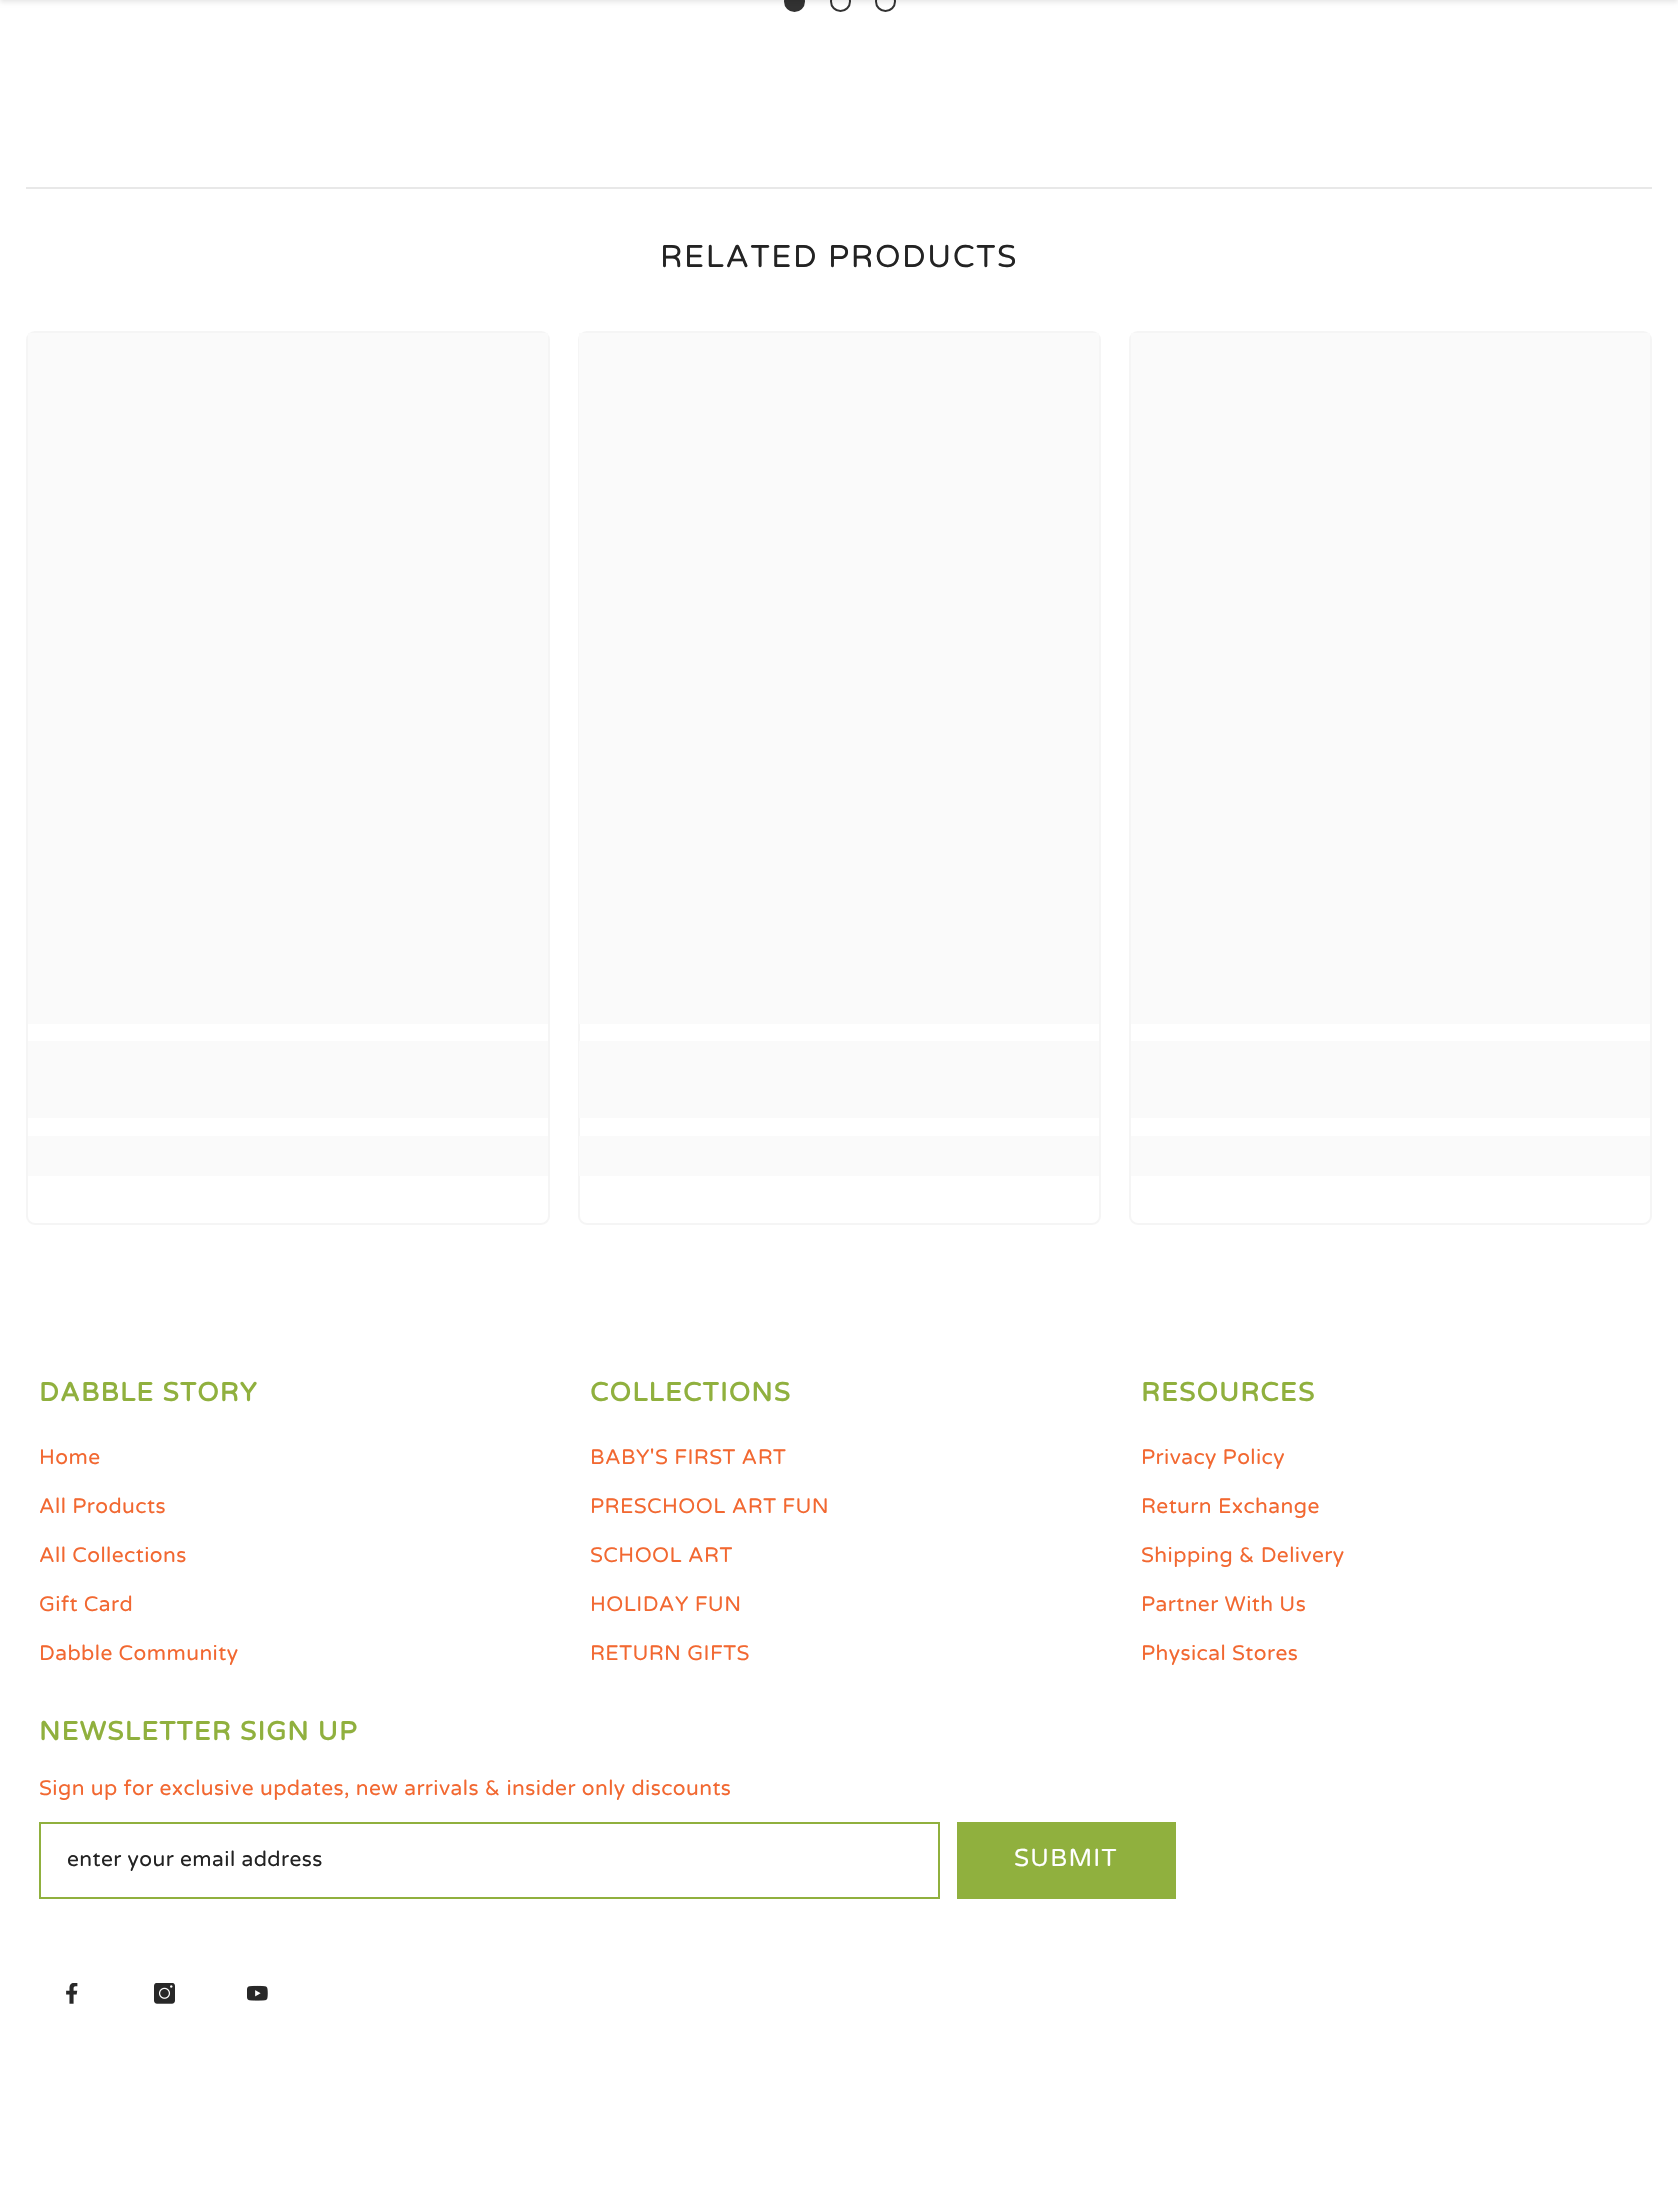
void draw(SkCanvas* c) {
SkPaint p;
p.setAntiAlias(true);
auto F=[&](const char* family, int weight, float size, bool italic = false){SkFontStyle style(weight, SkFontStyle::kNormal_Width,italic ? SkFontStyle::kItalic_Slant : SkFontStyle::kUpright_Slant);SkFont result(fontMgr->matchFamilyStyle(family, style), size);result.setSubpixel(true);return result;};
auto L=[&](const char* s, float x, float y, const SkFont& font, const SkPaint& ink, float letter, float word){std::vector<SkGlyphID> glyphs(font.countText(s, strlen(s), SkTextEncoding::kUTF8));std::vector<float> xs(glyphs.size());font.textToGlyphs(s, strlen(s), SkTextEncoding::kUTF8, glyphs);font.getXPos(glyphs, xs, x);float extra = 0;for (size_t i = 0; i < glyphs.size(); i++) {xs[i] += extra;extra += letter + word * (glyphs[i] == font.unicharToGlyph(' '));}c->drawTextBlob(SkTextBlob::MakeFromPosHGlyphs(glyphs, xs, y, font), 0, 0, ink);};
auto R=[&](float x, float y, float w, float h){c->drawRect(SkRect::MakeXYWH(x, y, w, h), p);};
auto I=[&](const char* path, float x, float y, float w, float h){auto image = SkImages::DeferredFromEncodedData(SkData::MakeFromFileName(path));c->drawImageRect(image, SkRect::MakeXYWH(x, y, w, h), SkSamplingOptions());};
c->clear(0xffffffff);
p.setColor(0xff323232);
c->drawCircle(794.5,1.5,9.5,p);
p.setStroke(true);
p.setStrokeWidth(2);
c->drawCircle(794.5,1.5,9.5,p);
c->drawCircle(840.5,1.5,9.5,p);
c->drawCircle(885.5,1.5,9.5,p);
p.setStroke(false);
p.setColor(0x1a000000);
p.setMaskFilter(SkMaskFilter::MakeBlur(kNormal_SkBlurStyle, 2.5));
c->drawRect(SkRect::MakeXYWH(0,-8,1678,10),p);
p.setMaskFilter(nullptr);
p.setColor(0xffe8e8e8);
R(26,187,1626,2);
auto f1 = F("Varela Round",400,31.5);
p.setColor(0xff232323);
L("RELATED PRODUCTS",660,267,f1,p,1.6,0);
p.setStroke(true);
p.setColor(0xfff5f5f5);
c->drawRoundRect(SkRect::MakeXYWH(27,332,522,892),8,8,p);
p.setStroke(false);
p.setColor(0xfffafafa);
R(28,333,520,691);
{
const SkColor colors[] = {0xfffafafa,0xfff1f2f3,0xfffafafa};
const float stops[] = {.04,.25,.36};
const SkPoint ends[] = {{-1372,1080}, {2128,1080}};
p.setShader(SkGradientShader::MakeLinear(ends, colors, stops, 3, SkTileMode::kClamp));
p.setAlpha(255);
}
R(28,1041,520,77);
{
const SkColor colors[] = {0xfffafafa,0xfff1f2f3,0xfffafafa};
const float stops[] = {.04,.25,.36};
const SkPoint ends[] = {{-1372,1156}, {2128,1156}};
p.setShader(SkGradientShader::MakeLinear(ends, colors, stops, 3, SkTileMode::kClamp));
p.setAlpha(255);
}
R(28,1136,520,40);
p.setStroke(true);
p.setShader(nullptr);
p.setColor(0xfff5f5f5);
c->drawRoundRect(SkRect::MakeXYWH(579,332,521,892),8,8,p);
p.setStroke(false);
p.setColor(0xfffafafa);
R(579,333,520,691);
{
const SkColor colors[] = {0xfffafafa,0xfff1f2f3,0xfffafafa};
const float stops[] = {.04,.25,.36};
const SkPoint ends[] = {{-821,1080}, {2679,1080}};
p.setShader(SkGradientShader::MakeLinear(ends, colors, stops, 3, SkTileMode::kClamp));
p.setAlpha(255);
}
R(579,1041,520,77);
{
const SkColor colors[] = {0xfffafafa,0xfff1f2f3,0xfffafafa};
const float stops[] = {.04,.25,.36};
const SkPoint ends[] = {{-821,1156}, {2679,1156}};
p.setShader(SkGradientShader::MakeLinear(ends, colors, stops, 3, SkTileMode::kClamp));
p.setAlpha(255);
}
R(579,1136,520,40);
p.setStroke(true);
p.setShader(nullptr);
p.setColor(0xfff5f5f5);
c->drawRoundRect(SkRect::MakeXYWH(1130,332,521,892),8,8,p);
p.setStroke(false);
p.setColor(0xfffafafa);
R(1131,333,519,691);
{
const SkColor colors[] = {0xfffafafa,0xfff1f2f3,0xfffafafa};
const float stops[] = {.04,.25,.36};
const SkPoint ends[] = {{-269,1080}, {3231,1080}};
p.setShader(SkGradientShader::MakeLinear(ends, colors, stops, 3, SkTileMode::kClamp));
p.setAlpha(255);
}
R(1131,1041,519,77);
{
const SkColor colors[] = {0xfffafafa,0xfff1f2f3,0xfffafafa};
const float stops[] = {.04,.25,.36};
const SkPoint ends[] = {{-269,1156}, {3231,1156}};
p.setShader(SkGradientShader::MakeLinear(ends, colors, stops, 3, SkTileMode::kClamp));
p.setAlpha(255);
}
R(1131,1136,519,40);
auto f2 = F("Varela Round",700,26.25);
p.setShader(nullptr);
p.setColor(0xff90b03e);
L("DABBLE STORY",39,1401,f2,p,1.3,0);
auto f3 = F("Varela Round",400,21);
p.setColor(0xfff26831);
L("Home",39,1464,f3,p,.42,0);
L("All Products",39,1513,f3,p,.42,0);
L("All Collections",39,1562,f3,p,.42,0);
L("Gift Card",39,1611,f3,p,.42,0);
L("Dabble Community",39,1660,f3,p,.42,0);
p.setColor(0xff90b03e);
L("COLLECTIONS",590,1401,f2,p,1.3,0);
p.setColor(0xfff26831);
L("BABY'S FIRST ART",590,1464,f3,p,.42,0);
L("PRESCHOOL ART FUN",590,1513,f3,p,.42,0);
L("SCHOOL ART",590,1562,f3,p,.42,0);
L("HOLIDAY FUN",590,1611,f3,p,.42,0);
L("RETURN GIFTS",590,1660,f3,p,.42,0);
p.setColor(0xff90b03e);
L("RESOURCES",1141,1401,f2,p,1.3,0);
p.setColor(0xfff26831);
L("Privacy Policy",1141,1464,f3,p,.42,0);
L("Return Exchange",1141,1513,f3,p,.42,0);
L("Shipping & Delivery",1141,1562,f3,p,.42,0);
L("Partner With Us",1141,1611,f3,p,.42,0);
L("Physical Stores",1141,1660,f3,p,.42,0);
p.setColor(0xff90b03e);
L("NEWSLETTER SIGN UP",39,1740,f2,p,1.3,0);
p.setColor(0xfff26831);
L("Sign up for exclusive updates, new arrivals & insider only discounts",39,1795,f3,p,.42,0);
p.setStroke(true);
p.setColor(0xff90b03e);
c->drawRect(SkRect::MakeXYWH(40,1823,899,75),p);
p.setStroke(false);
p.setColor(0xff232323);
L("enter your email address",67,1866,f3,p,.42,0);
p.setColor(0xff90b03e);
R(957,1822,219,77);
auto f4 = F("Varela Round",400,24.5);
p.setColor(0xffffffff);
L("SUBMIT",1014,1866,f4,p,1.25,0);
I("1.png",66,1983,12,21);
I("2.png",154,1983,21,21);
I("3.png",247,1985,21,16);
}
